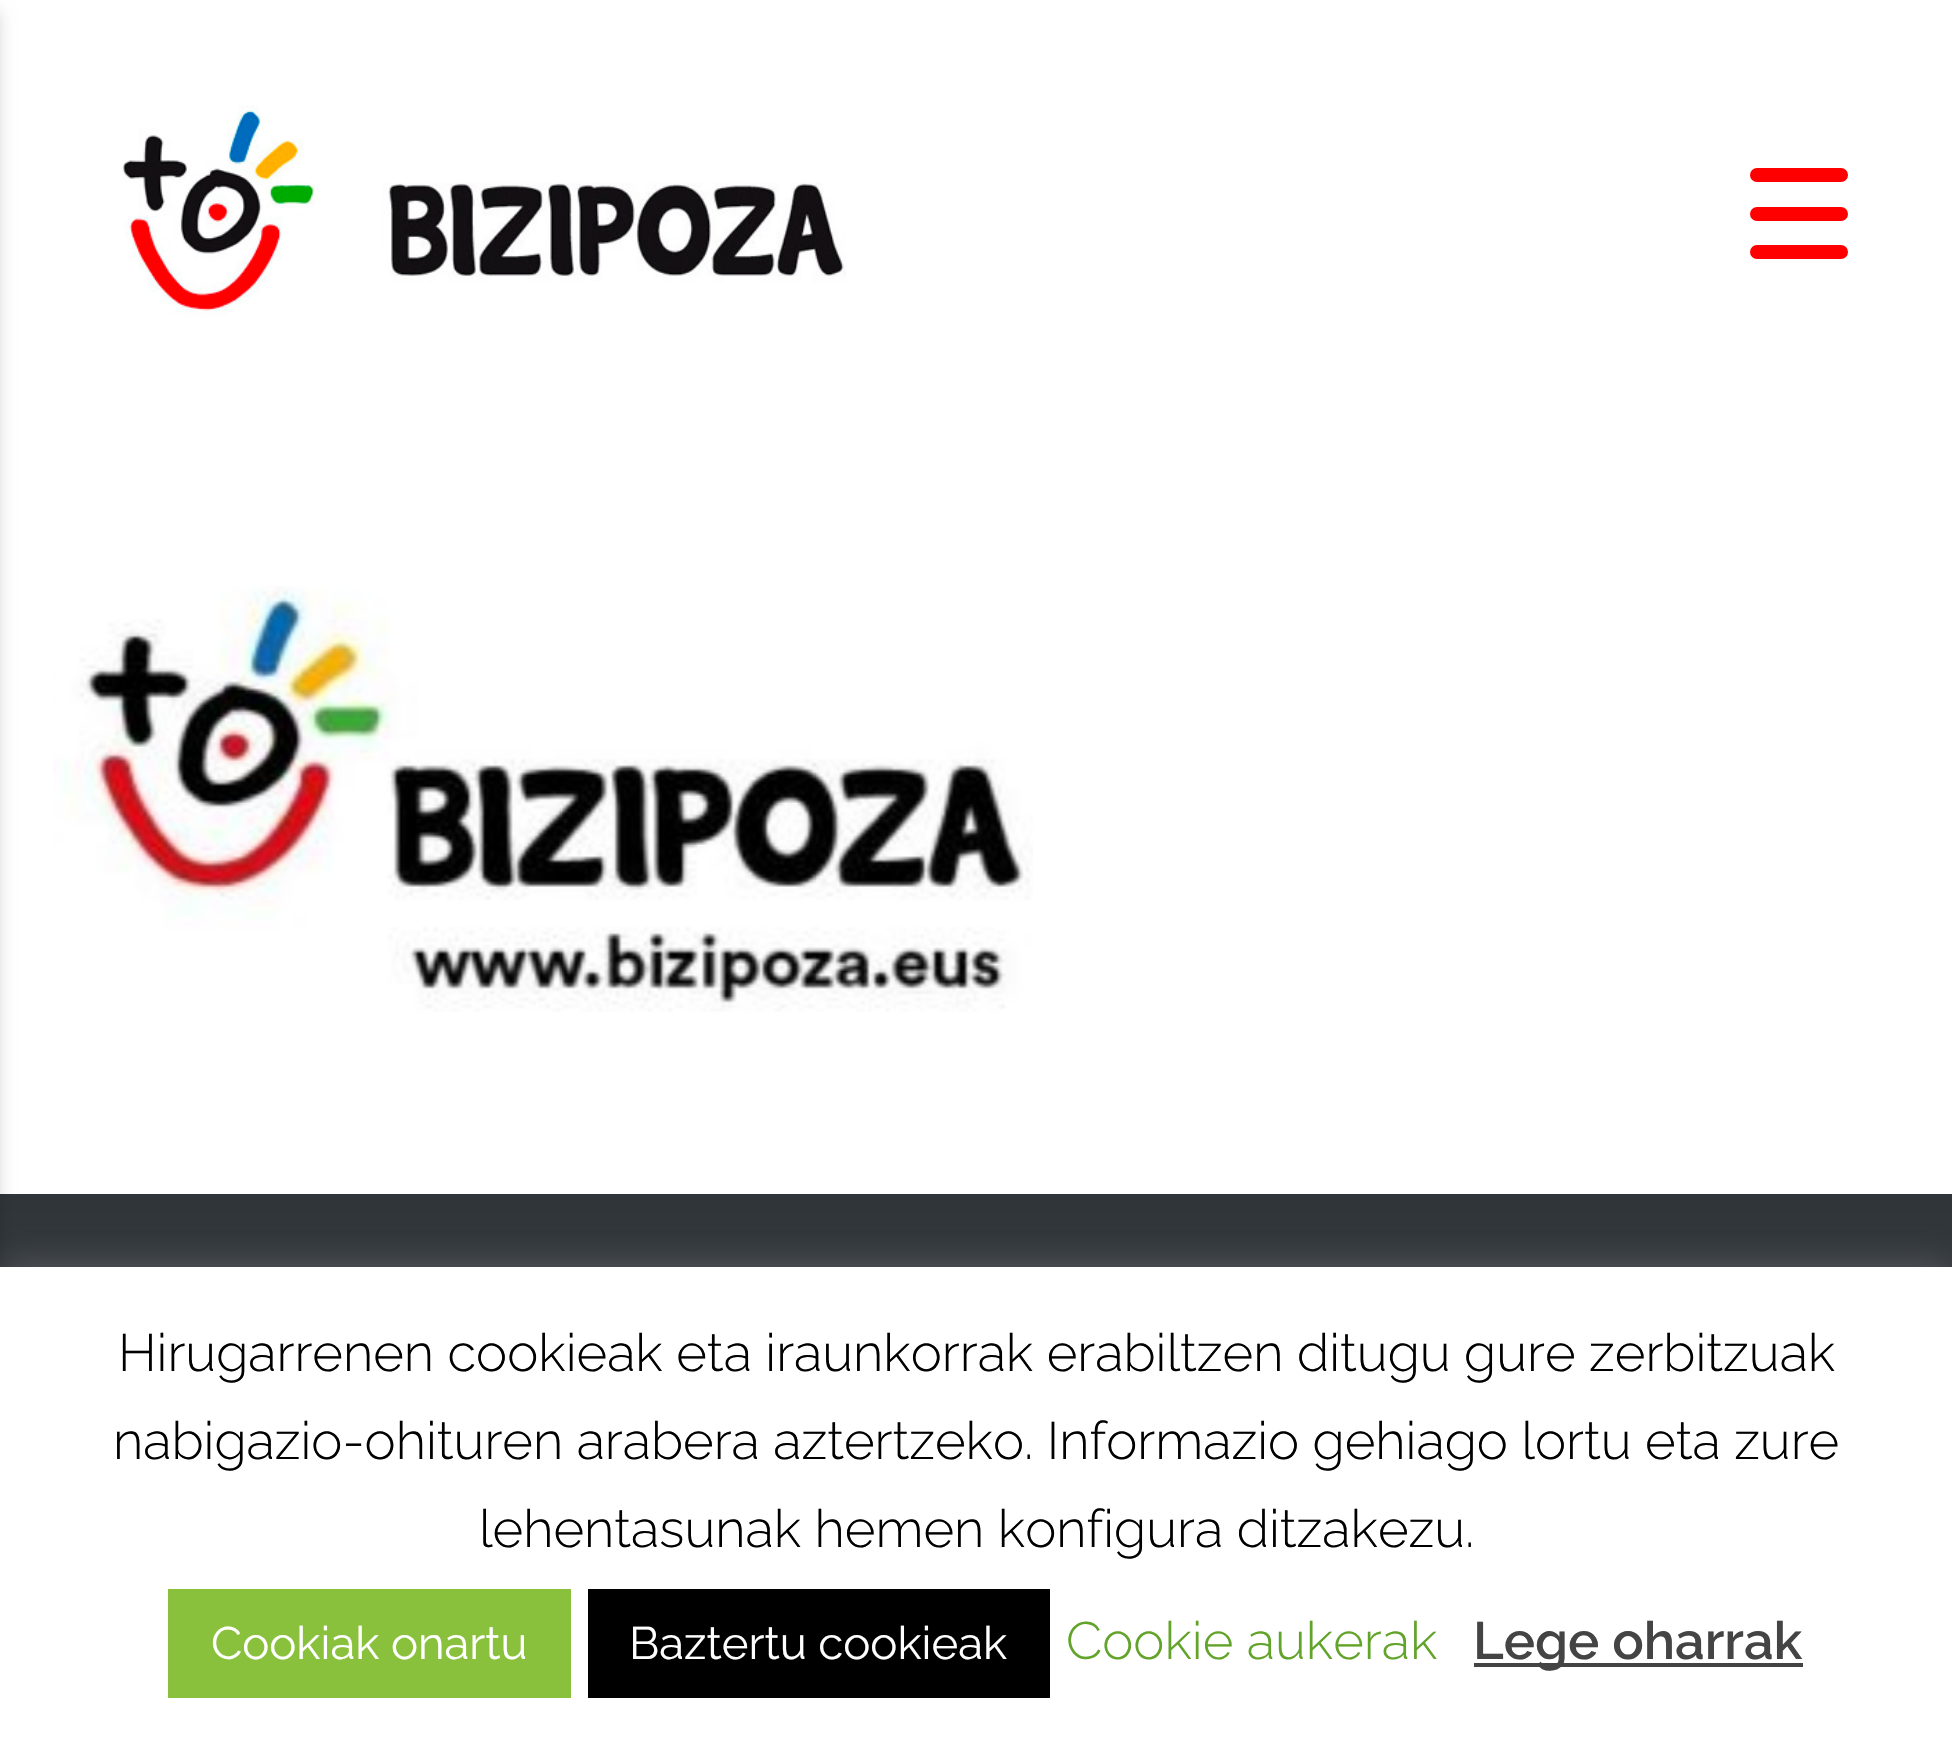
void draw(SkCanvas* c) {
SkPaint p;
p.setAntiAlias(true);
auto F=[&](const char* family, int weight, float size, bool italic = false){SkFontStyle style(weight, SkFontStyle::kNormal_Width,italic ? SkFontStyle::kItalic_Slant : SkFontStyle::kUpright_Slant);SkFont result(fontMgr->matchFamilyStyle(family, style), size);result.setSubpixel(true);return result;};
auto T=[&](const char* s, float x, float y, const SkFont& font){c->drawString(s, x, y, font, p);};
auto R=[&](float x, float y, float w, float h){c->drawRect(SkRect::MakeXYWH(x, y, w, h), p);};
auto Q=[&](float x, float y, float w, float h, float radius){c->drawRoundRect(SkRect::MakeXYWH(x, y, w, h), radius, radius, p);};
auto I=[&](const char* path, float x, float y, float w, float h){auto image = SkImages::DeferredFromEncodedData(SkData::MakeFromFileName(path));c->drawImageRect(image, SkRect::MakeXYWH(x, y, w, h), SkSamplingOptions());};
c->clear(0xffffffff);
p.setColor(0xff30353a);
R(0,1194,1952,73);
p.setColor(0x33000000);
p.setMaskFilter(SkMaskFilter::MakeBlur(kNormal_SkBlurStyle, 9));
c->drawRect(SkRect::MakeXYWH(-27,11,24,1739),p);
p.setMaskFilter(nullptr);
I("1.png",122,105,724,211);
p.setColor(0xffff0000);
Q(1750,168,98,14,7);
Q(1750,207,98,14,7);
Q(1750,245,98,14,7);
I("2.png",53,586,980,426);
p.setColor(0x4dacabab);
p.setMaskFilter(SkMaskFilter::MakeBlur(kNormal_SkBlurStyle, 17.5));
c->drawRect(SkRect::MakeXYWH(0,1264,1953,472),p);
p.setMaskFilter(nullptr);
p.setColor(0xffffffff);
R(0,1267,1952,472);
auto f1 = F("Raleway",300,52.5);
p.setColor(0xff000000);
T("Hirugarrenen cookieak eta iraunkorrak erabiltzen ditugu gure zerbitzuak",118,1371,f1);
T("nabigazio-ohituren arabera aztertzeko. Informazio gehiago lortu eta zure",113,1459,f1);
T("lehentasunak hemen konfigura ditzakezu.",479,1547,f1);
p.setColor(0xff8ac13c);
R(168,1589,403,109);
auto f2 = F("Raleway",400,45.5);
p.setColor(0xffffffff);
T("Cookiak onartu",211,1659,f2);
p.setColor(0xff000000);
R(588,1589,462,109);
p.setColor(0xffffffff);
T("Baztertu cookieak",629,1659,f2);
p.setColor(0xff62a329);
T("Cookie aukerak",1066,1659,f1);
p.setColor(0xff444444);
R(1474,1663,329,4);
auto f3 = F("Raleway",600,52.5);
T("Lege oharrak",1473,1659,f3);
}
